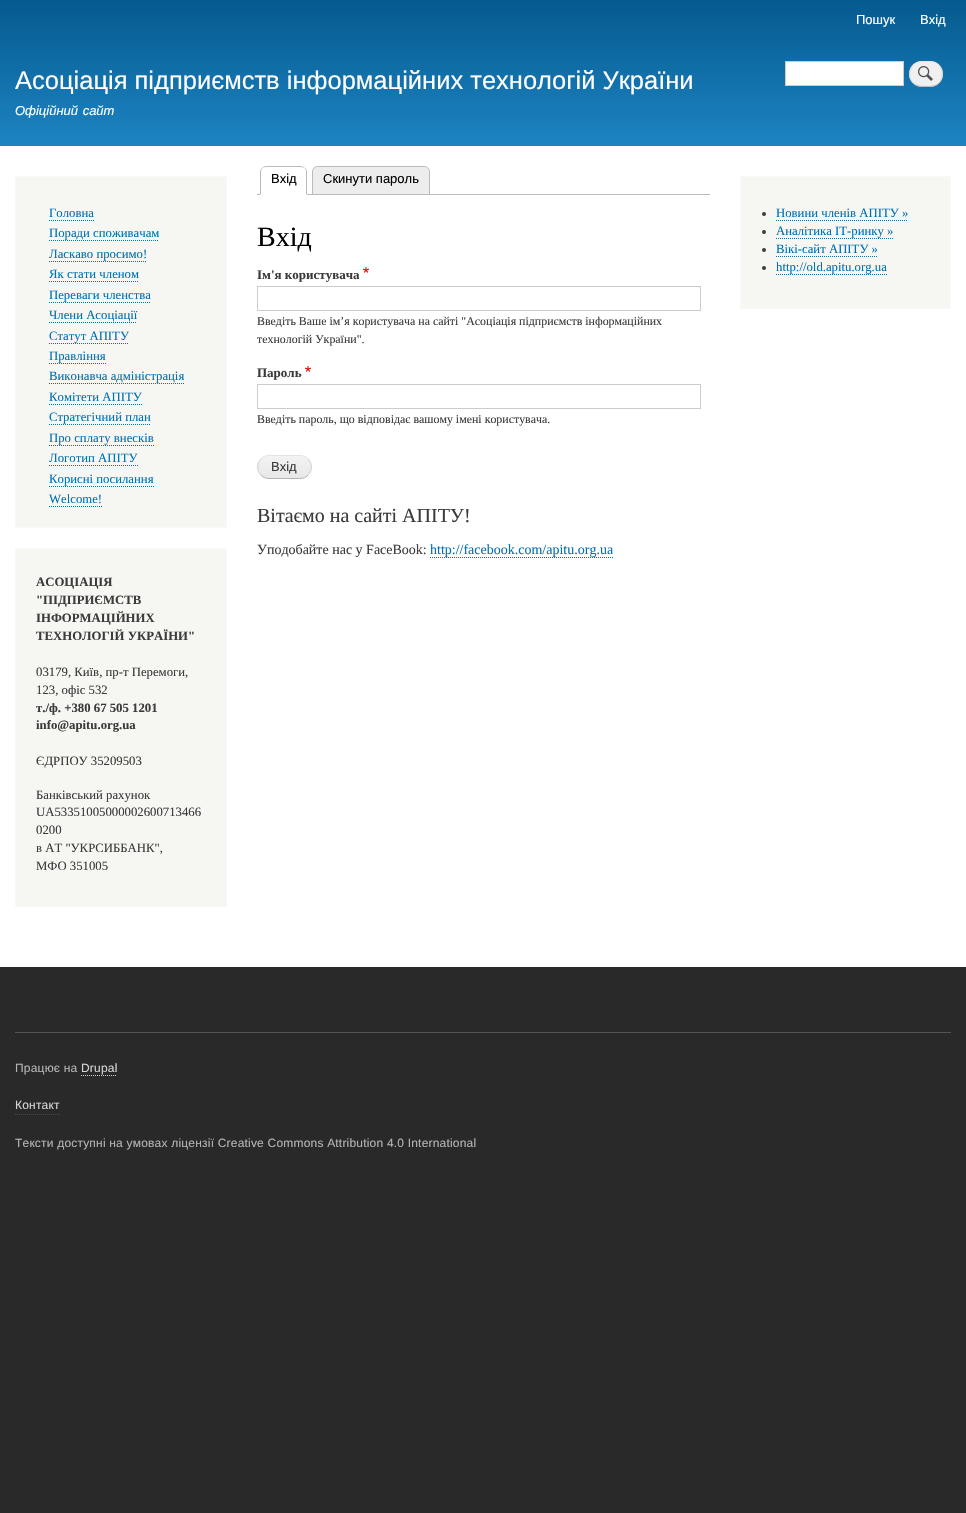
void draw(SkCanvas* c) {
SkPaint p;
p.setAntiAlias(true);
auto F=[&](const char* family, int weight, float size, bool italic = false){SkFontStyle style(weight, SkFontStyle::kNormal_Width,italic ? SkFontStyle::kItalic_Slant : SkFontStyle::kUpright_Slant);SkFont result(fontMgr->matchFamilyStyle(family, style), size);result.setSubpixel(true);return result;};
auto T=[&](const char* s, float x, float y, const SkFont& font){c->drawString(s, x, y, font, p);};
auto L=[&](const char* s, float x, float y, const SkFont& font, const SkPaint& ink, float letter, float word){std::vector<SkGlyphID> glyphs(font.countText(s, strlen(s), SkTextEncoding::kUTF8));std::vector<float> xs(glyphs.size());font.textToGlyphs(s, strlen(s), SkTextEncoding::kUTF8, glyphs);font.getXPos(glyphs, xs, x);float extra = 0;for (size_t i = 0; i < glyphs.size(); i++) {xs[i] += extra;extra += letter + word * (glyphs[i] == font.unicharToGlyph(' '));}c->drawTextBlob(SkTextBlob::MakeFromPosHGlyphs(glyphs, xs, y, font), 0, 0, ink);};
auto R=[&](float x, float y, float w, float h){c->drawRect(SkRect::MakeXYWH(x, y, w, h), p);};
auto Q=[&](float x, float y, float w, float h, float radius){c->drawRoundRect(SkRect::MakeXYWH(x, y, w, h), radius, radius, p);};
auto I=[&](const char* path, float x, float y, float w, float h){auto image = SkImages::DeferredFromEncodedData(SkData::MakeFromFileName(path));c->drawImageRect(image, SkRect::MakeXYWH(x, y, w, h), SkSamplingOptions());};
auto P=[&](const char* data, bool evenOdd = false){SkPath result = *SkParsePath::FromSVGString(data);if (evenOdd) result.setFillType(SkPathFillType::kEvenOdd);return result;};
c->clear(0xff292929);
p.setColor(0xffffffff);
R(0,146,966,821);
{
const SkColor colors[] = {0xff055a8e,0xff1d84c3};
const float stops[] = {0,1};
const SkPoint ends[] = {{483,0}, {483,146}};
p.setShader(SkGradientShader::MakeLinear(ends, colors, stops, 2, SkTileMode::kClamp));
p.setAlpha(255);
}
R(0,0,966,146);
auto f1 = F("Liberation Sans",400,13);
p.setShader(nullptr);
p.setColor(0xfffffeff);
T("Пошук",856,24,f1);
T("Вхід",920,24,f1);
auto f2 = F("Liberation Sans",400,25.5);
T("Асоціація підприємств інформаційних технологій України",15,89,f2);
auto f3 = F("Liberation Sans",400,13,true);
L("Офіційний сайт",15,115,f3,p,0,1);
p.setColor(0xffffffff);
c->drawRect(SkRect::MakeXYWH(785.5,61.5,118,24),p);
p.setStroke(true);
p.setStrokeWidth(1);
p.setColor(0xffcccccc);
c->drawRect(SkRect::MakeXYWH(785.5,61.5,118,24),p);
p.setStroke(false);
p.setColor(0xfff0f0f0);
Q(909,61,34,26,13);
I("1.png",918,66,15,15);
p.setStroke(true);
p.setColor(0xffe4e4e4);
c->drawPath(P("M913 65c4-3.5 8-3.5 13-3.5c5 0 9 0 13 3.5"),p);
p.setColor(0xffd2d2d2);
c->drawPath(P("M939 65c4.5 5 4.5 13 0 18"),p);
p.setColor(0xffb4b4b4);
c->drawPath(P("M939 83c-4 3.5-8 3.5-13 3.5c-5 0-9 0-13-3.5"),p);
p.setColor(0xffd2d2d2);
c->drawPath(P("M913 83c-4.5-5-4.5-13 0-18"),p);
p.setStroke(false);
p.setColor(0xfff6f6f2);
c->drawRect(SkRect::MakeXYWH(15.5,176.5,211,351),p);
p.setStroke(true);
p.setColor(0xfff9f9f9);
c->drawRect(SkRect::MakeXYWH(15.5,176.5,211,351),p);
auto f4 = F("Liberation Serif",400,12.75);
p.setStroke(false);
p.setColor(0xff0071b3);
T("Головна",49,217,f4);
p.setStroke(true);
p.setPathEffect(SkDashPathEffect::Make({{1,1}}, 0));
c->drawPath(P("M49 220.5h45"),p);
p.setPathEffect(nullptr);
p.setStroke(false);
T("Поради споживачам",49,237,f4);
p.setStroke(true);
p.setPathEffect(SkDashPathEffect::Make({{1,1}}, 0));
c->drawPath(P("M49 240.5h110"),p);
p.setPathEffect(nullptr);
p.setStroke(false);
T("Ласкаво просимо!",49,258,f4);
p.setStroke(true);
p.setPathEffect(SkDashPathEffect::Make({{1,1}}, 0));
c->drawPath(P("M49 261.5h98"),p);
p.setPathEffect(nullptr);
p.setStroke(false);
T("Як стати членом",49,278,f4);
p.setStroke(true);
p.setPathEffect(SkDashPathEffect::Make({{1,1}}, 0));
c->drawPath(P("M49 281.5h90"),p);
p.setPathEffect(nullptr);
p.setStroke(false);
T("Переваги членства",49,299,f4);
p.setStroke(true);
p.setPathEffect(SkDashPathEffect::Make({{1,1}}, 0));
c->drawPath(P("M49 302.5h102"),p);
p.setPathEffect(nullptr);
p.setStroke(false);
T("Члени Асоціації",49,319,f4);
p.setStroke(true);
p.setPathEffect(SkDashPathEffect::Make({{1,1}}, 0));
c->drawPath(P("M49 322.5h88"),p);
p.setPathEffect(nullptr);
p.setStroke(false);
T("Статут АПІТУ",49,340,f4);
p.setStroke(true);
p.setPathEffect(SkDashPathEffect::Make({{1,1}}, 0));
c->drawPath(P("M49 343.5h80"),p);
p.setPathEffect(nullptr);
p.setStroke(false);
T("Правління",49,360,f4);
p.setStroke(true);
p.setPathEffect(SkDashPathEffect::Make({{1,1}}, 0));
c->drawPath(P("M49 363.5h57"),p);
p.setPathEffect(nullptr);
p.setStroke(false);
T("Виконавча адміністрація",49,380,f4);
p.setStroke(true);
p.setPathEffect(SkDashPathEffect::Make({{1,1}}, 0));
c->drawPath(P("M49 383.5h135"),p);
p.setPathEffect(nullptr);
p.setStroke(false);
T("Комітети АПІТУ",49,401,f4);
p.setStroke(true);
p.setPathEffect(SkDashPathEffect::Make({{1,1}}, 0));
c->drawPath(P("M49 404.5h93"),p);
p.setPathEffect(nullptr);
p.setStroke(false);
T("Стратегічний план",49,421,f4);
p.setStroke(true);
p.setPathEffect(SkDashPathEffect::Make({{1,1}}, 0));
c->drawPath(P("M49 424.5h102"),p);
p.setPathEffect(nullptr);
p.setStroke(false);
T("Про сплату внесків",49,442,f4);
p.setStroke(true);
p.setPathEffect(SkDashPathEffect::Make({{1,1}}, 0));
c->drawPath(P("M49 445.5h105"),p);
p.setPathEffect(nullptr);
p.setStroke(false);
T("Логотип АПІТУ",49,462,f4);
p.setStroke(true);
p.setPathEffect(SkDashPathEffect::Make({{1,1}}, 0));
c->drawPath(P("M49 465.5h89"),p);
p.setPathEffect(nullptr);
p.setStroke(false);
T("Корисні посилання",49,483,f4);
p.setStroke(true);
p.setPathEffect(SkDashPathEffect::Make({{1,1}}, 0));
c->drawPath(P("M49 486.5h105"),p);
p.setPathEffect(nullptr);
p.setStroke(false);
T("Welcome!",49,503,f4);
p.setStroke(true);
p.setPathEffect(SkDashPathEffect::Make({{1,1}}, 0));
c->drawPath(P("M49 506.5h53"),p);
p.setPathEffect(nullptr);
p.setStroke(false);
p.setColor(0xfff6f6f2);
c->drawRect(SkRect::MakeXYWH(15.5,548.5,211,358),p);
p.setStroke(true);
p.setColor(0xfff9f9f9);
c->drawRect(SkRect::MakeXYWH(15.5,548.5,211,358),p);
auto f5 = F("Liberation Serif",700,12.75);
p.setStroke(false);
p.setColor(0xff3b3b3b);
T("АСОЦІАЦІЯ",36,586,f5);
T("\"ПІДПРИЄМСТВ",36,604,f5);
T("ІНФОРМАЦІЙНИХ",36,622,f5);
T("ТЕХНОЛОГІЙ УКРАЇНИ\"",36,640,f5);
T("03179, Київ, пр-т Перемоги,",36,676,f4);
T("123, офіс 532",36,694,f4);
T("т./ф. +380 67 505 1201",36,712,f5);
T("info@apitu.org.ua",36,729,f5);
T("ЄДРПОУ 35209503",36,765,f4);
T("Банківський рахунок",36,799,f4);
T("UA53351005000002600713466",36,816,f4);
T("0200",36,834,f4);
T("в АТ \"УКРСИББАНК\",",36,852,f4);
T("МФО 351005",36,870,f4);
p.setColor(0xffbbbbbb);
R(257,194,453,1);
p.setColor(0xffffffff);
c->drawPath(P("M266 166h35c3.5 0 6 2.5 6 6v23h-47v-23c0-3.5 2.5-6 6-6z"),p);
p.setColor(0xffbbbbbb);
c->drawPath(P("M266 166c-2 0-3 1-4 2c1 0 2-1 4-1h35c1 0 3 1 4 1c-1-1-3-2-4-2zm41 29v-23c0-1.5-1-3-2-4l-.5 .5c1 .5 1.5 2 1.5 3.5v22z"),p);
p.setColor(0xffffffff);
c->drawPath(P("M307 195l-1-1h-45l-1 1z"),p);
p.setColor(0xffbbbbbb);
c->drawPath(P("M260 195l1-1v-22c0-1.5 .5-3 1.5-3.5l-.5-.5c-1 1-2 2.5-2 4z"),p);
p.setColor(0xff000000);
T("Вхід",271,183,f1);
p.setColor(0xffededed);
c->drawPath(P("M318 166h106c3.5 0 6 2.5 6 6v22h-118v-22c0-3.5 2.5-6 6-6z"),p);
p.setColor(0xffbbbbbb);
c->drawPath(P("M318 166h106c3 0 6 3 6 6v22h-118v-22c0-3 3-6 6-6zm0 1h106c3 0 5 2 5 5v22h-116v-22c0-3 2-5 5-5z",true),p);
p.setColor(0xff000000);
T("Скинути пароль",323,183,f1);
auto f6 = F("Liberation Serif",400,28);
T("Вхід",257,246,f6);
auto f7 = F("Liberation Serif",700,13);
p.setColor(0xff3b3b3b);
T("Ім'я користувача",257,279,f7);
I("2.png",363,267,6,6);
p.setStroke(true);
p.setColor(0xffcccccc);
c->drawRect(SkRect::MakeXYWH(257.5,286.5,443,24),p);
auto f8 = F("Liberation Serif",400,11.9);
p.setStroke(false);
p.setColor(0xff3b3b3b);
T("Введіть Ваше ім’я користувача на сайті \"Асоціація підприємств інформаційних",257,325,f8);
T("технологій України\".",257,343,f8);
T("Пароль",257,377,f7);
I("2.png",305,366,6,6);
p.setStroke(true);
p.setColor(0xffcccccc);
c->drawRect(SkRect::MakeXYWH(257.5,384.5,443,24),p);
p.setStroke(false);
p.setColor(0xff3b3b3b);
T("Введіть пароль, що відповідає вашому імені користувача.",257,423,f8);
c->save();
c->clipPath(P("M269 455h31c6.5 0 12 5.5 12 12c0 6.5-5.5 12-12 12h-31c-6.5 0-12-5.5-12-12c0-6.5 5.5-12 12-12z"),true);
{
const SkColor colors[] = {0xfff3f3f3,0xffe8e8e8};
const float stops[] = {0,1};
const SkPoint ends[] = {{285,456}, {285,478}};
p.setShader(SkGradientShader::MakeLinear(ends, colors, stops, 2, SkTileMode::kClamp));
p.setAlpha(255);
}
R(257,456,55,22);
c->restore();
p.setStroke(true);
p.setShader(nullptr);
p.setColor(0xffe4e4e4);
c->drawPath(P("M261 459c2-2.5 5-3.5 8-3.5h31c3 0 6 1 8 3.5"),p);
p.setColor(0xffd2d2d2);
c->drawPath(P("M308 459c4.5 4.5 4.5 11.5 0 16"),p);
p.setColor(0xffb4b4b4);
c->drawPath(P("M308 475c-2 2.5-5 3.5-8 3.5h-31c-3 0-6-1-8-3.5"),p);
p.setColor(0xffd2d2d2);
c->drawPath(P("M261 475c-4.5-4.5-4.5-11.5 0-16"),p);
p.setStroke(false);
p.setColor(0xff3b3b3b);
T("Вхід",271,471,f1);
auto f9 = F("Liberation Serif",400,20);
T("Вітаємо на сайті АПІТУ!",257,522,f9);
auto f10 = F("Liberation Serif",400,14);
T("Уподобайте нас у FaceBook:",257,554,f10);
p.setColor(0xff0071b3);
T("http://facebook.com/apitu.org.ua",430,554,f10);
p.setStroke(true);
p.setPathEffect(SkDashPathEffect::Make({{1,1}}, 0));
c->drawPath(P("M430 557.5h183"),p);
p.setPathEffect(nullptr);
p.setStroke(false);
p.setColor(0xfff6f6f2);
c->drawRect(SkRect::MakeXYWH(740.5,176.5,210,132),p);
p.setStroke(true);
p.setColor(0xfff9f9f9);
c->drawRect(SkRect::MakeXYWH(740.5,176.5,210,132),p);
p.setStroke(false);
p.setColor(0xff3b3b3b);
c->drawCircle(764,214,2,p);
p.setColor(0xff0071b3);
T("Новини членів АПІТУ »",776,217,f4);
p.setStroke(true);
p.setPathEffect(SkDashPathEffect::Make({{1,1}}, 0));
c->drawPath(P("M776 220.5h132"),p);
p.setPathEffect(nullptr);
p.setStroke(false);
p.setColor(0xff3b3b3b);
c->drawCircle(764,232,2,p);
p.setColor(0xff0071b3);
T("Аналітика ІТ-ринку »",776,235,f4);
p.setStroke(true);
p.setPathEffect(SkDashPathEffect::Make({{1,1}}, 0));
c->drawPath(P("M776 238.5h117"),p);
p.setPathEffect(nullptr);
p.setStroke(false);
p.setColor(0xff3b3b3b);
c->drawCircle(764,250,2,p);
p.setColor(0xff0071b3);
T("Вікі-сайт АПІТУ »",776,253,f4);
p.setStroke(true);
p.setPathEffect(SkDashPathEffect::Make({{1,1}}, 0));
c->drawPath(P("M776 256.5h102"),p);
p.setPathEffect(nullptr);
p.setStroke(false);
p.setColor(0xff3b3b3b);
c->drawCircle(764,268,2,p);
p.setColor(0xff0071b3);
T("http://old.apitu.org.ua",776,271,f4);
p.setStroke(true);
p.setPathEffect(SkDashPathEffect::Make({{1,1}}, 0));
c->drawPath(P("M776 274.5h111"),p);
p.setPathEffect(nullptr);
p.setStroke(false);
p.setColor(0xff555555);
R(15,1032,936,1);
auto f11 = F("Liberation Sans",400,12);
p.setColor(0xffb4b4b4);
L("Працює на",15,1072,f11,p,.2,0);
p.setColor(0xffd4d4d4);
L("Drupal",81,1072,f11,p,.2,0);
p.setStroke(true);
p.setPathEffect(SkDashPathEffect::Make({{1,1}}, 0));
c->drawPath(P("M81 1075.5h36"),p);
p.setPathEffect(nullptr);
p.setColor(0xff494949);
p.setPathEffect(SkDashPathEffect::Make({{1,1}}, 0));
c->drawPath(P("M15 1114.5h45"),p);
p.setPathEffect(nullptr);
p.setStroke(false);
p.setColor(0xffd4d4d4);
L("Контакт",15,1109,f11,p,.2,0);
p.setColor(0xffb4b4b4);
L("Тексти доступні на умовах ліцензії Creative Commons Attribution 4.0 International",15,1147,f11,p,.2,0);
}
